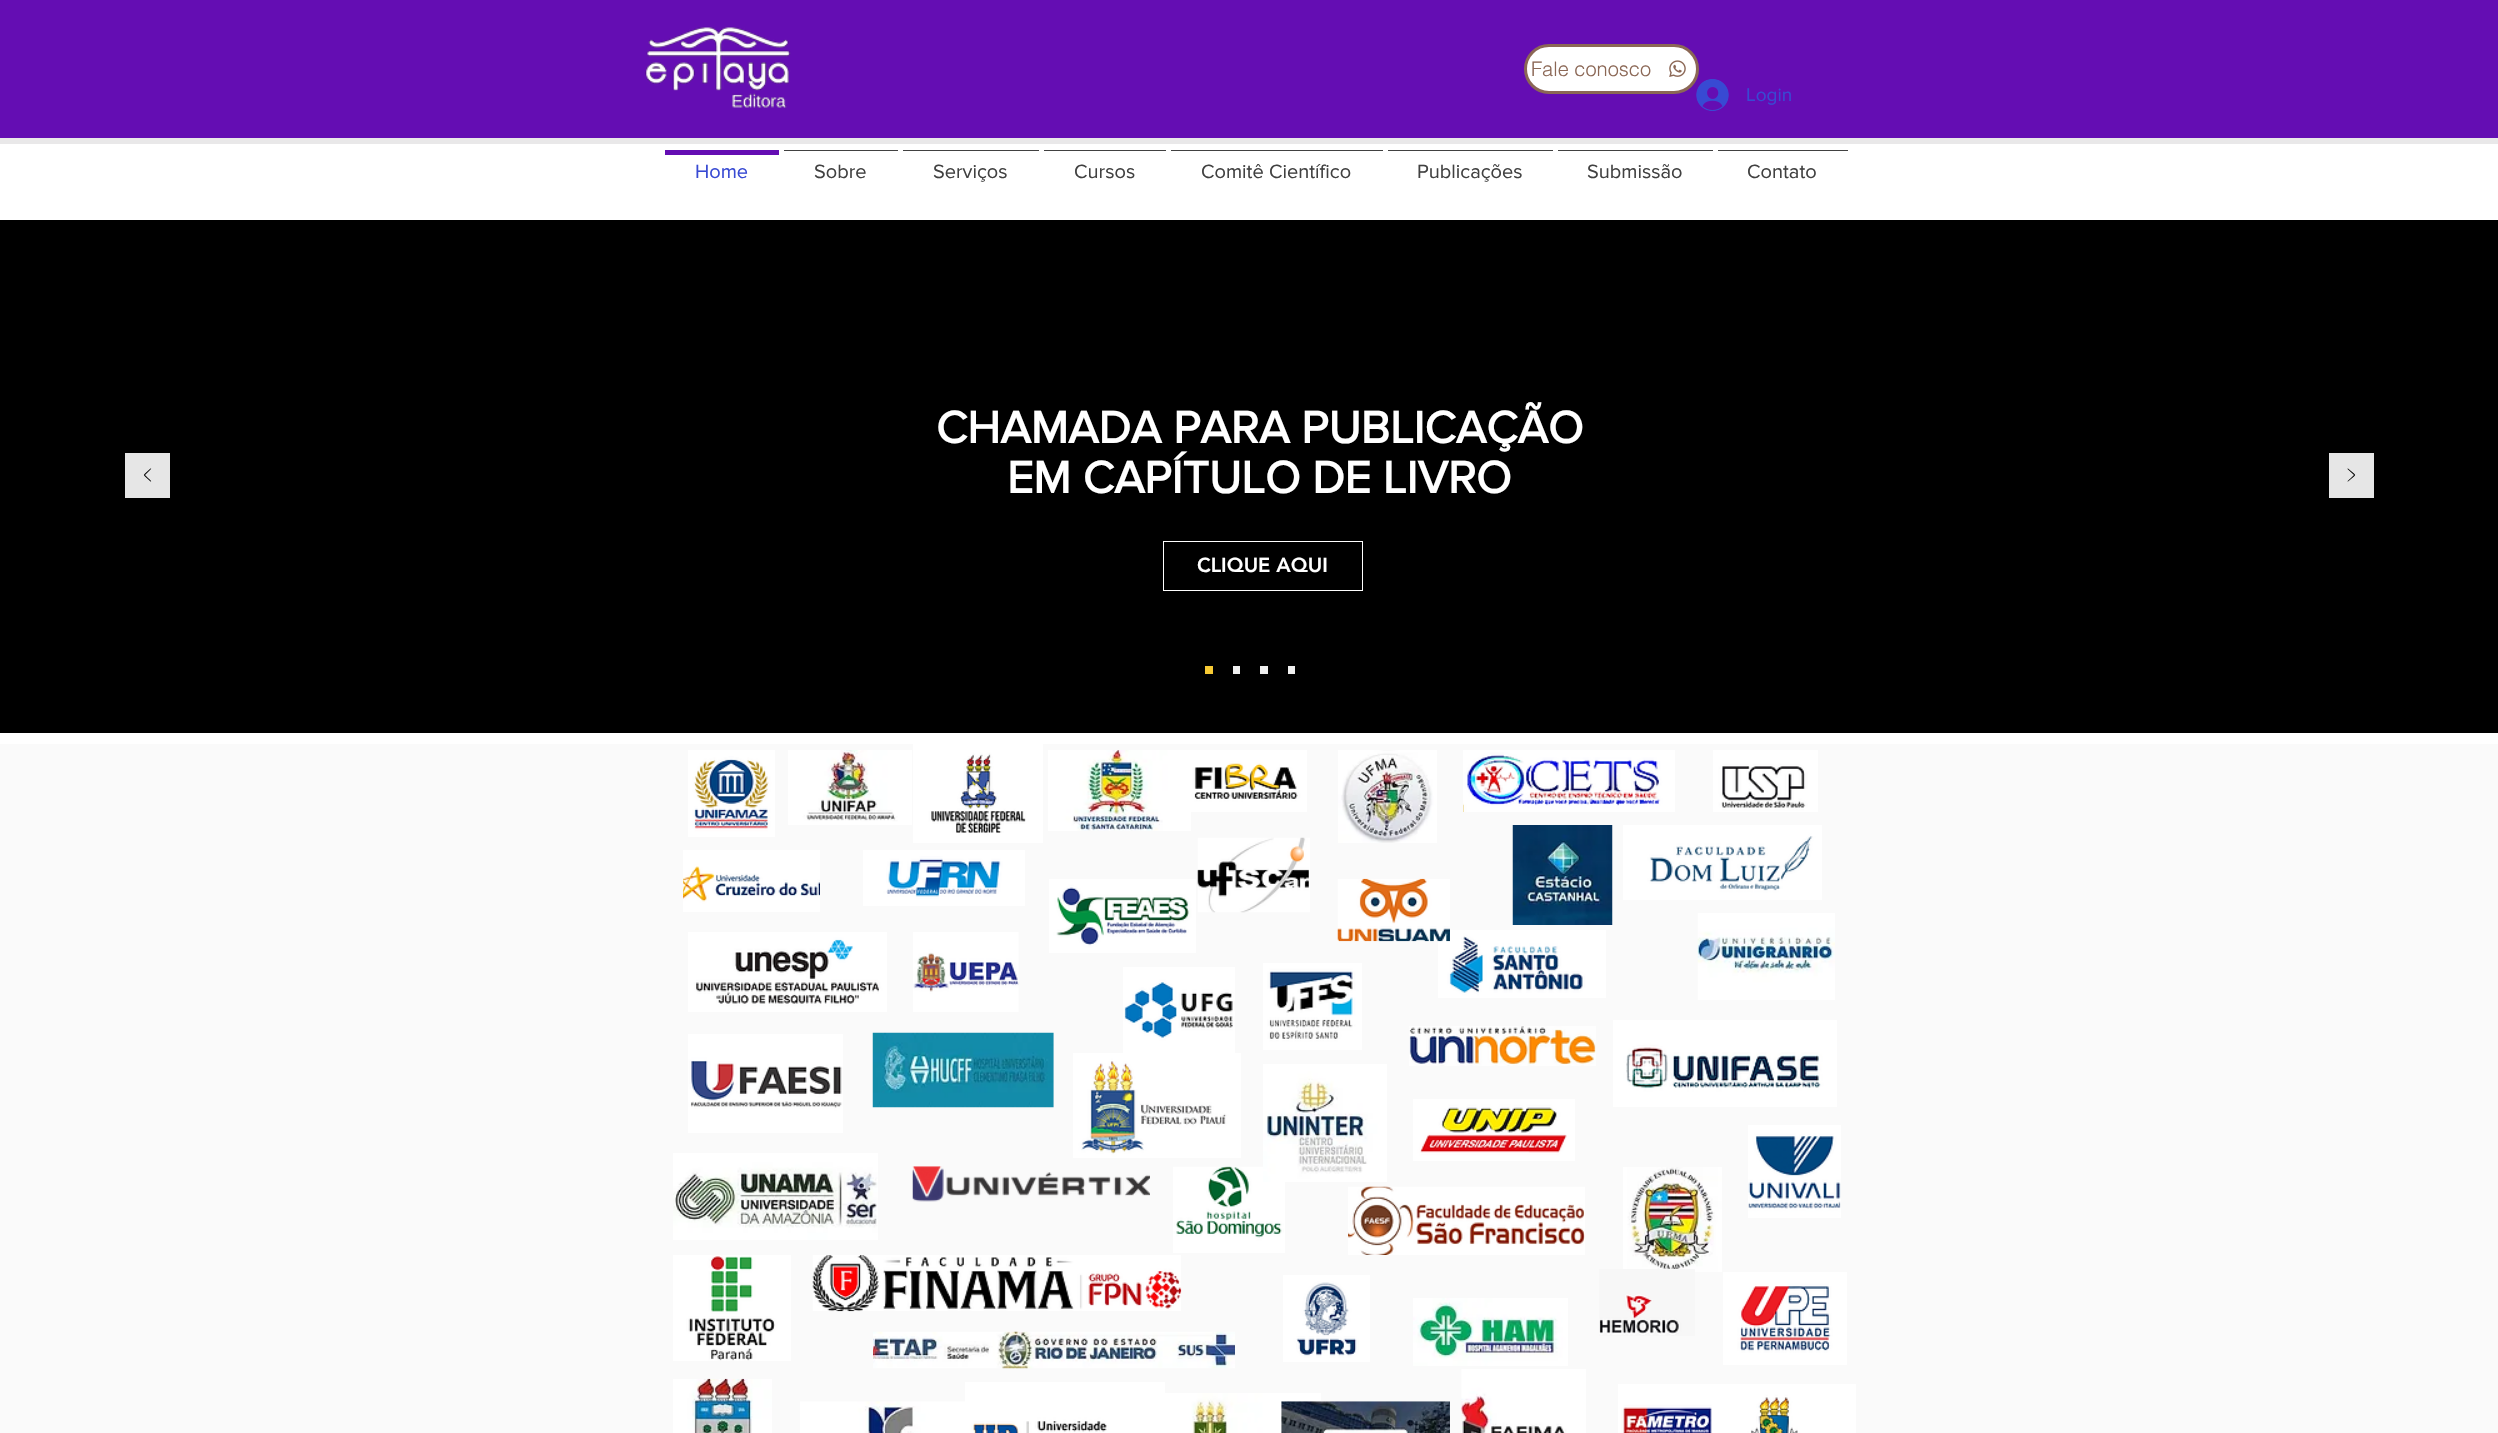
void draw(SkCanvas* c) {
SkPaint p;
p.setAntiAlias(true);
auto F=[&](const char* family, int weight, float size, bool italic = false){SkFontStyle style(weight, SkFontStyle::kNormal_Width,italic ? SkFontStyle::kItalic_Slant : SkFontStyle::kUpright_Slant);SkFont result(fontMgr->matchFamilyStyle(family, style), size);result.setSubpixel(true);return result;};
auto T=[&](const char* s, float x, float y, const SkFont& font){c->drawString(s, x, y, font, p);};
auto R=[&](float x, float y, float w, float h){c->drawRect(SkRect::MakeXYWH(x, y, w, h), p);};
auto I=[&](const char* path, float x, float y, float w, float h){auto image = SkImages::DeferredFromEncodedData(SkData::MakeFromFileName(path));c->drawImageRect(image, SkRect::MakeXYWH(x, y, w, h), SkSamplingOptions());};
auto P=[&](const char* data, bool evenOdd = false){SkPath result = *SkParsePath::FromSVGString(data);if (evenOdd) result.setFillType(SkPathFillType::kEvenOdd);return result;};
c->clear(0xffffffff);
p.setColor(0xff640db3);
R(0,0,2498,138);
p.setColor(0xffe9e8e9);
R(0,138,2498,6);
I("1.png",645,26,146,82);
p.setColor(0xffffffff);
c->drawRoundRect(SkRect::MakeXYWH(1525.5,45.5,172,47),23.5,23.5,p);
p.setStroke(true);
p.setStrokeWidth(3);
p.setColor(0xff8b6755);
c->drawRoundRect(SkRect::MakeXYWH(1525.5,45.5,172,47),23.5,23.5,p);
auto f1 = F("helvetica",300,20);
p.setStroke(false);
T("Fale conosco",1531,76,f1);
I("2.png",1669,60,17,17);
I("3.png",1696,79,33,32);
auto f2 = F("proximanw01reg",400,19);
p.setColor(0xff384ad3);
T("Login",1746,101,f2);
p.setColor(0xff640db3);
R(665,150,114,5);
auto f3 = F("proximanw01reg",400,20);
p.setColor(0xff384ad3);
T("Home",695,178,f3);
p.setColor(0xff414141);
R(784,150,114,1);
T("Sobre",814,178,f3);
R(903,150,136,1);
T("Serviços",933,178,f3);
R(1044,150,122,1);
T("Cursos",1074,178,f3);
R(1171,150,212,1);
T("Comitê Científico",1201,178,f3);
R(1388,150,165,1);
T("Publicações",1417,178,f3);
R(1558,150,155,1);
T("Submissão",1587,178,f3);
R(1718,150,130,1);
T("Contato",1747,178,f3);
p.setColor(0xff000000);
R(0,220,2498,513);
p.setColor(0xffe6e6e6);
R(125,453,45,45);
p.setColor(0xff000000);
c->drawPath(P("M150.5 481.5c2 0-.5-1.5-5.5-6.5l6-6c.5 0 0-.5-.5-.5l-5.5 5c-1.5 1.5-1.5 1.5 0 3z"),p);
auto f4 = F("proximanw01reg",700,46.25);
p.setColor(0xffffffff);
T("CHAMADA PARA PUBLICAÇÃO",936,443,f4);
T("EM CAPÍTULO DE LIVRO",1007,493,f4);
p.setStroke(true);
p.setStrokeWidth(1);
c->drawRect(SkRect::MakeXYWH(1163.5,541.5,199,49),p);
auto f5 = F("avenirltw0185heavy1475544",900,20);
p.setStroke(false);
T("CLIQUE AQUI",1197,572,f5);
p.setColor(0xffe6e6e6);
R(2329,453,45,45);
p.setColor(0xff000000);
c->drawPath(P("M2348 481.5c-1.5 0 1-1.5 6-6.5l-6.5-6c0 0 0-.5 .5-.5l6 5c1.5 1.5 1.5 1.5 0 3z"),p);
p.setColor(0xfff7ca34);
R(1205,666,8,8);
p.setColor(0xfff0f0f0);
R(1233,666,7,8);
R(1260,666,8,8);
R(1288,666,7,8);
p.setColor(0xfffafafa);
R(0,744,2498,689);
I("4.png",688,750,87,87);
I("5.png",788,750,124,75);
I("6.png",913,744,130,99);
I("7.png",1048,750,143,81);
I("8.png",1191,750,116,62);
I("9.png",1338,750,99,93);
I("10.png",1463,750,212,62);
I("11.png",1713,750,105,62);
I("12.png",683,850,137,62);
I("13.png",863,850,162,56);
I("14.png",1049,879,147,74);
I("15.png",1197,837,113,76);
I("23.png",1438,930,168,68);
I("16.png",1337,878,113,64);
I("17.png",1512,825,101,100);
I("18.png",1623,825,199,75);
I("19.png",688,932,199,80);
I("20.png",913,932,106,80);
I("21.png",1123,967,112,86);
I("22.png",1263,963,99,87);
I("24.png",1697,913,138,87);
I("25.png",688,1034,155,99);
I("26.png",872,1032,182,76);
I("27.png",1073,1053,168,105);
I("33.png",1173,1166,112,87);
I("28.png",1263,1064,124,118);
I("29.png",1409,1026,187,40);
I("30.png",1613,1020,224,87);
I("31.png",673,1153,205,87);
I("32.png",912,1166,238,36);
I("34.png",1413,1099,162,62);
I("35.png",1623,1167,99,105);
I("36.png",1748,1125,93,93);
I("37.png",1348,1186,237,69);
I("38.png",673,1255,118,106);
I("39.png",812,1255,370,57);
I("40.png",1283,1275,87,87);
I("41.png",1413,1298,155,68);
I("42.png",1599,1268,96,68);
I("43.png",1723,1272,124,93);
I("44.png",873,1331,362,38);
I("45.png",673,1378,99,55);
I("46.png",800,1401,165,32);
I("47.png",1165,1393,156,40);
I("48.png",1281,1401,169,32);
I("49.png",1461,1369,125,64);
I("50.png",1618,1384,94,49);
I("51.png",1712,1384,144,49);
I("52.png",965,1382,200,51);
}
